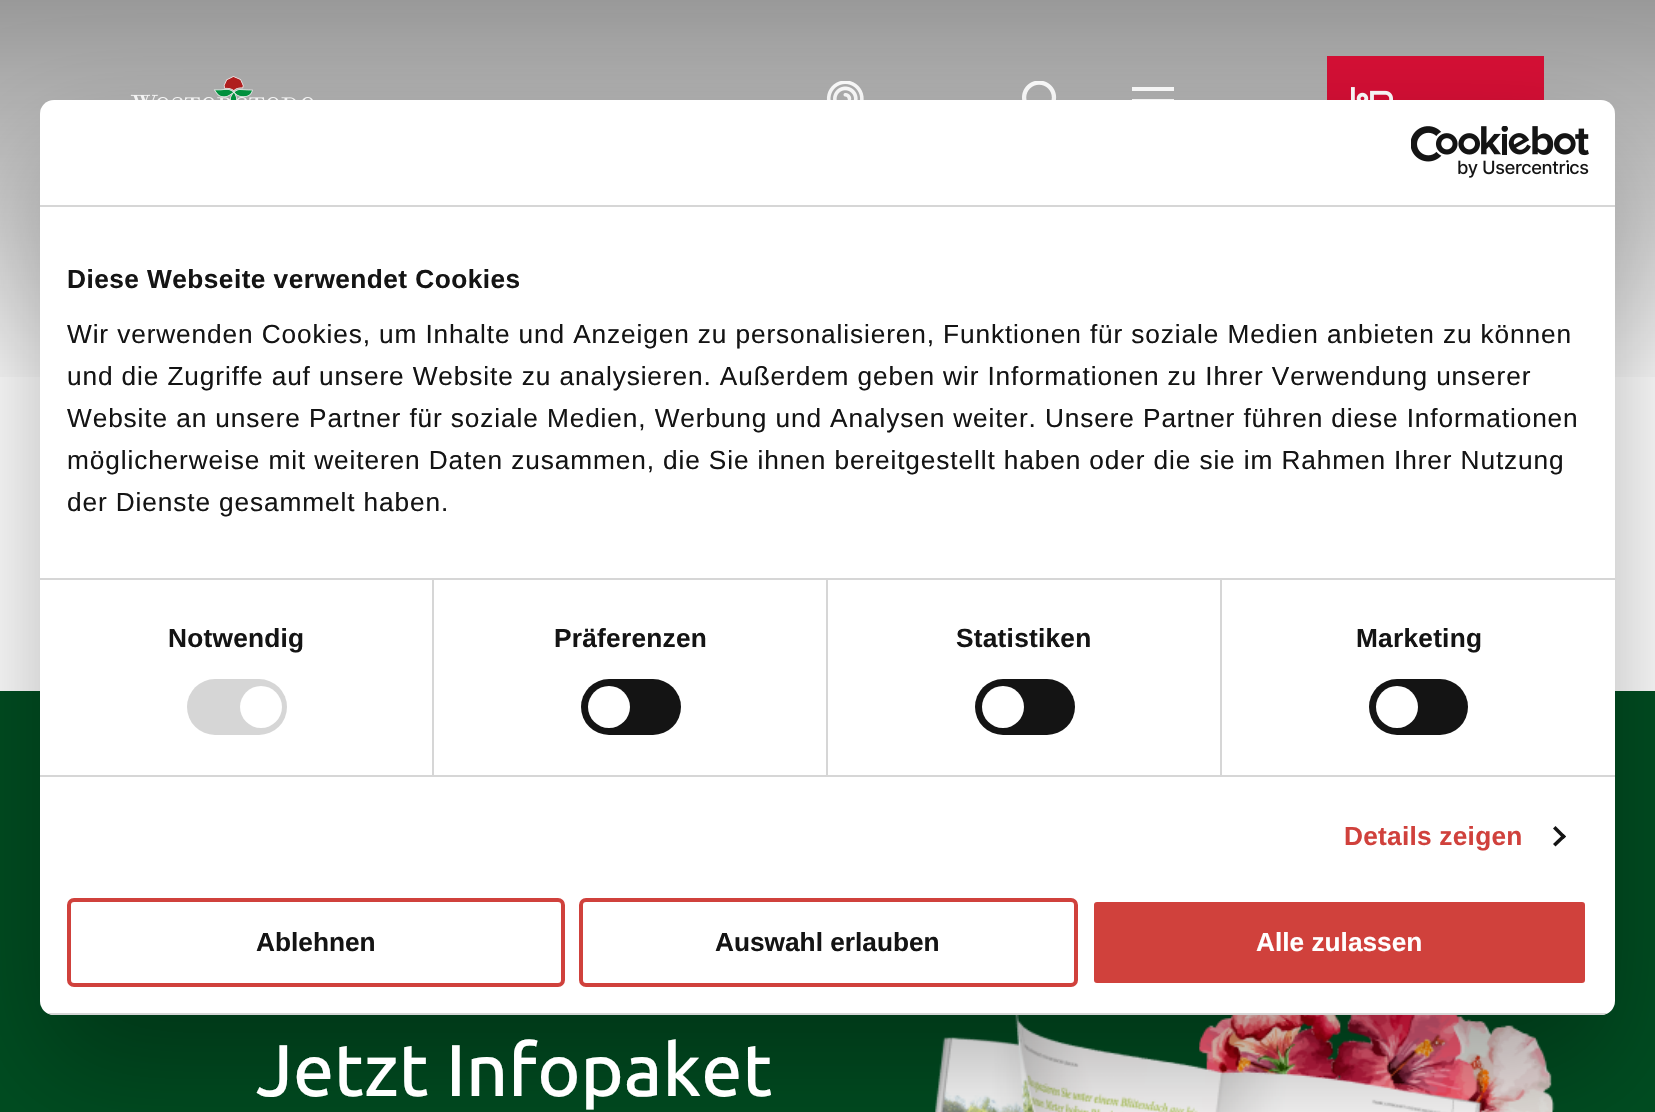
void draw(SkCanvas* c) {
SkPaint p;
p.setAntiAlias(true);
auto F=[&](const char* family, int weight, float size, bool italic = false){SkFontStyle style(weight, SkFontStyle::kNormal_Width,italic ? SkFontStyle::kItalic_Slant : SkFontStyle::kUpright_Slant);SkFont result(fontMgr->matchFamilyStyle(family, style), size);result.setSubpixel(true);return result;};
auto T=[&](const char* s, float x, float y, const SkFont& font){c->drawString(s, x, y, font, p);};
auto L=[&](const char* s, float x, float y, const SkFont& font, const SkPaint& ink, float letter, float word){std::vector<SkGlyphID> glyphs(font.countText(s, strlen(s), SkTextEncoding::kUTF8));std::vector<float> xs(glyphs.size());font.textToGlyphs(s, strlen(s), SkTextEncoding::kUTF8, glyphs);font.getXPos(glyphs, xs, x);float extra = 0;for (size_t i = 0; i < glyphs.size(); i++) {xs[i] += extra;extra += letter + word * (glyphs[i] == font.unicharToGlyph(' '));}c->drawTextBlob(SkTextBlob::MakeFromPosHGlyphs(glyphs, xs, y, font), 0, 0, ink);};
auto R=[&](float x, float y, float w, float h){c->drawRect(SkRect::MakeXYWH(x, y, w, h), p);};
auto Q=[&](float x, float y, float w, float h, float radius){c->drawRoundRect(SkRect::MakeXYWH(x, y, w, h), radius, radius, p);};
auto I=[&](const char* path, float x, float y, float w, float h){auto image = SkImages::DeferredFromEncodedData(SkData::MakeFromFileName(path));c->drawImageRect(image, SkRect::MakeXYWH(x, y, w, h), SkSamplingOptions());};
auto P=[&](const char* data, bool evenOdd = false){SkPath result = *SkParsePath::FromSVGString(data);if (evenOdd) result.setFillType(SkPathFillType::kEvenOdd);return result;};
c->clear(0xffffffff);
{
const SkColor colors[] = {0x66000000,0x00000000};
const float stops[] = {0,1};
const SkPoint ends[] = {{828,0}, {828,399}};
p.setShader(SkGradientShader::MakeLinear(ends, colors, stops, 2, SkTileMode::kClamp));
p.setAlpha(255);
}
R(0,0,1655,377);
I("1.png",130,76,183,24);
I("2.png",826,81,38,19);
I("3.png",1022,81,35,19);
p.setShader(nullptr);
p.setColor(0xffffffff);
c->drawPath(P("M1174 91v-4h-42v4zm0 8v4h-42v-4zm0 13v4h-42v-4z",true),p);
p.setColor(0xffd50f35);
R(1327,56,217,44);
I("4.png",1351,87,42,13);
p.setColor(0xff004d21);
R(0,691,1655,421);
I("6.png",935,1015,620,97);
p.setColor(0x4d000000);
p.setMaskFilter(SkMaskFilter::MakeBlur(kNormal_SkBlurStyle, 59.5));
c->drawRoundRect(SkRect::MakeXYWH(40,156,1575,915),14,14,p);
p.setMaskFilter(nullptr);
p.setColor(0xffffffff);
Q(40,100,1575,915,14);
p.setColor(0xffd6d6d6);
R(40,205,1575,2);
I("5.png",1411,126,178,52);
R(432,579,2,196);
R(826,579,2,196);
R(1220,579,2,196);
R(40,578,1575,2);
auto f1 = F("Liberation Sans",700,26.25);
p.setColor(0xff141414);
L("Diese Webseite verwendet Cookies",67,288,f1,p,.45,0);
auto f2 = F("Liberation Sans",400,26.25);
L("Wir verwenden Cookies, um Inhalte und Anzeigen zu personalisieren, Funktionen für soziale Medien anbieten zu können",67,343,f2,p,.88,0);
L("und die Zugriffe auf unsere Website zu analysieren. Außerdem geben wir Informationen zu Ihrer Verwendung unserer",67,385,f2,p,.88,0);
L("Website an unsere Partner für soziale Medien, Werbung und Analysen weiter. Unsere Partner führen diese Informationen",67,427,f2,p,.88,0);
L("möglicherweise mit weiteren Daten zusammen, die Sie ihnen bereitgestellt haben oder die sie im Rahmen Ihrer Nutzung",67,469,f2,p,.88,0);
L("der Dienste gesammelt haben.",67,511,f2,p,.88,0);
p.setColor(0xffd6d6d6);
R(40,775,1575,2);
p.setColor(0xff141414);
L("Notwendig",168,647,f1,p,.25,0);
p.setColor(0xffd6d6d6);
Q(187,679,100,56,28);
p.setColor(0xffffffff);
c->drawCircle(261,707,21,p);
p.setColor(0xff141414);
L("Präferenzen",554,647,f1,p,.25,0);
Q(581,679,100,56,28);
p.setColor(0xffffffff);
c->drawCircle(609,707,21,p);
p.setColor(0xff141414);
L("Statistiken",956,647,f1,p,.25,0);
Q(975,679,100,56,28);
p.setColor(0xffffffff);
c->drawCircle(1003,707,21,p);
p.setColor(0xff141414);
L("Marketing",1356,647,f1,p,.25,0);
Q(1369,679,99,56,28);
p.setColor(0xffffffff);
c->drawCircle(1397,707,21,p);
p.setColor(0xffd0413c);
L("Details zeigen",1344,845,f1,p,.25,0);
p.setColor(0xff141414);
c->drawPath(P("M1555.5 826l10.5 10.5l-2.5 2.5l-10.5-10.5z"),p);
c->drawPath(P("M1563.5 834l2.5 2.5l-10.5 10l-2.5-2.5z"),p);
c->save();
c->clipPath(P("M54 100h1547c7.5 0 14 6.5 14 14v887c0 7.5-6.5 14-14 14h-1547c-7.5 0-14-6.5-14-14v-887c0-7.5 6.5-14 14-14z"),true);
p.setColor(0xffd6d6d6);
R(40,1013,1575,2);
c->restore();
p.setStroke(true);
p.setStrokeWidth(4);
p.setColor(0xffd0413c);
c->drawRoundRect(SkRect::MakeXYWH(69,900,494,85),5,5,p);
p.setStroke(false);
p.setColor(0xff141414);
T("Ablehnen",256,951,f1);
p.setStroke(true);
p.setColor(0xffd0413c);
c->drawRoundRect(SkRect::MakeXYWH(581,900,495,85),5,5,p);
p.setStroke(false);
p.setColor(0xff141414);
T("Auswahl erlauben",715,951,f1);
p.setColor(0xffd0413c);
c->drawRoundRect(SkRect::MakeXYWH(1092,900,495,85),5,5,p);
p.setStroke(true);
p.setColor(0xffffffff);
c->drawRoundRect(SkRect::MakeXYWH(1092,900,495,85),5,5,p);
p.setStroke(false);
T("Alle zulassen",1256,951,f1);
auto f3 = F("Ubuntu",500,73.25);
T("Jetzt Infopaket",256,1096,f3);
}
